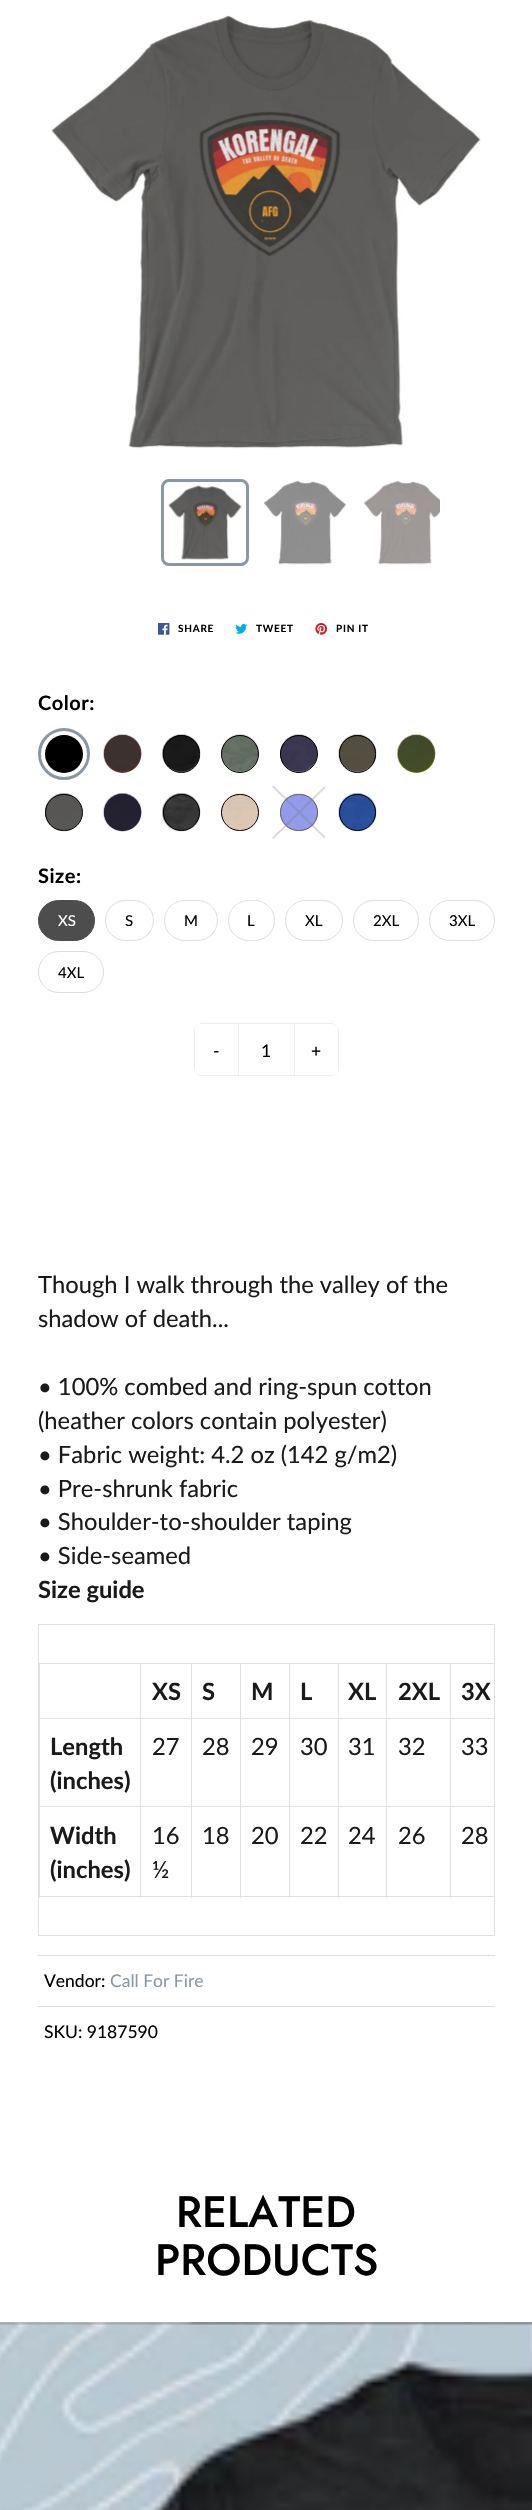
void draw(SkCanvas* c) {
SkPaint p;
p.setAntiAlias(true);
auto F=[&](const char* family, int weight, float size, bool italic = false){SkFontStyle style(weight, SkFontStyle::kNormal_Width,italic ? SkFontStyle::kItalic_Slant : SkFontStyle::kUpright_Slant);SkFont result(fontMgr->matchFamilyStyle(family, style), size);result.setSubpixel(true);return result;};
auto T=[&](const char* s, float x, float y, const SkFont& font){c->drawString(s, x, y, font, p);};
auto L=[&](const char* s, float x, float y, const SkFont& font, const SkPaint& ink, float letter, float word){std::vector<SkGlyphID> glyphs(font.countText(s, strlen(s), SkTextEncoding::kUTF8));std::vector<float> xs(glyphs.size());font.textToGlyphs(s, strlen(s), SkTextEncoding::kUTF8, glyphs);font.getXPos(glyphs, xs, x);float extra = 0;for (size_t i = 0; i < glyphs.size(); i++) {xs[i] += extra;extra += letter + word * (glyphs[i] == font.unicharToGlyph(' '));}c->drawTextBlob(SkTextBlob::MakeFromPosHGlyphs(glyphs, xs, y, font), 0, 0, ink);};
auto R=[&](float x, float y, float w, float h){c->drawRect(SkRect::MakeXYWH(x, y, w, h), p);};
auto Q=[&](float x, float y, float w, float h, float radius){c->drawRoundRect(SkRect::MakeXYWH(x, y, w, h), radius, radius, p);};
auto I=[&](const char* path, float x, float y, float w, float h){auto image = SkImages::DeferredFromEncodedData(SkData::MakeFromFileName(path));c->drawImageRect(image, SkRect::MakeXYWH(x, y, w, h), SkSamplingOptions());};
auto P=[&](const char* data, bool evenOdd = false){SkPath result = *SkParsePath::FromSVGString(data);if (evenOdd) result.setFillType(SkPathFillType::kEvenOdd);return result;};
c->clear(0xffffffff);
I("1.png",51,15,430,434);
p.setStroke(true);
p.setStrokeWidth(3);
p.setColor(0xff8998a5);
c->drawRoundRect(SkRect::MakeXYWH(162.5,480.5,85,84),6.5,6.5,p);
I("2.png",168,485,74,75);
I("3.png",264,480,83,85);
I("4.png",364,480,76,85);
I("5.png",158,623,12,12);
auto f1 = F("Lato",700,10);
p.setStroke(false);
p.setColor(0xff000000);
L("SHARE",178,632,f1,p,.75,0);
I("6.png",235,624,13,10);
L("TWEET",256,632,f1,p,.75,0);
I("7.png",315,623,13,12);
L("PIN IT",336,632,f1,p,.75,0);
auto f2 = F("Lato",700,20);
L("Color:",38,710,f2,p,.5,0);
p.setStroke(true);
p.setColor(0xff8998a5);
c->drawCircle(64,754,24.5,p);
p.setStroke(false);
p.setColor(0xff000000);
c->drawCircle(64,754,19,p);
p.setColor(0xffa52a2a);
Q(104,735,37,38,18.5);
I("8.png",103,734,39,39);
I("9.png",162,734,39,39);
p.setStroke(true);
p.setStrokeWidth(1);
p.setColor(0xff000000);
c->drawRoundRect(SkRect::MakeXYWH(163.5,735.5,36,37),18,18,p);
I("10.png",221,734,39,39);
c->drawCircle(240,754,18.5,p);
I("11.png",280,734,38,39);
c->drawCircle(299,754,18.5,p);
I("12.png",338,734,39,39);
c->drawRoundRect(SkRect::MakeXYWH(339.5,735.5,36,37),18,18,p);
p.setStroke(false);
p.setColor(0xff808000);
Q(398,735,37,38,18.5);
I("13.png",397,734,39,39);
I("14.png",45,793,38,39);
p.setStroke(true);
p.setColor(0xff000000);
c->drawRoundRect(SkRect::MakeXYWH(45.5,794.5,37,36),18,18,p);
p.setStroke(false);
p.setColor(0xff000080);
c->drawCircle(122.5,812.5,18.5,p);
I("15.png",103,793,39,39);
I("16.png",162,793,39,39);
p.setStroke(true);
p.setColor(0xff000000);
c->drawCircle(181.5,812.5,18,p);
I("17.png",221,793,39,39);
c->drawRoundRect(SkRect::MakeXYWH(221.5,794.5,37,36),18,18,p);
p.setStroke(false);
p.setColor(0xff6666ff);
Q(280,794,38,37,18.5);
I("19.png",280,793,38,39);
p.setStroke(true);
p.setColor(0xff666666);
c->drawRoundRect(SkRect::MakeXYWH(280.5,794.5,37,36),18,18,p);
I("18.png",272,786,54,53);
I("20.png",338,793,39,39);
p.setColor(0xff000000);
c->drawCircle(357.5,812.5,18,p);
p.setStroke(false);
L("Size:",38,883,f2,p,.5,0);
p.setColor(0xff4d4d4d);
c->drawRoundRect(SkRect::MakeXYWH(38.5,900.5,56,40),20,20,p);
p.setStroke(true);
c->drawRoundRect(SkRect::MakeXYWH(38.5,900.5,56,40),20,20,p);
auto f3 = F("Lato",400,15);
p.setStroke(false);
p.setColor(0xffffffff);
T("XS",58,926,f3);
p.setStroke(true);
p.setColor(0xffdddddd);
c->drawRoundRect(SkRect::MakeXYWH(105.5,900.5,48,40),20,20,p);
p.setStroke(false);
p.setColor(0xff000000);
T("S",125,926,f3);
p.setStroke(true);
p.setColor(0xffdddddd);
c->drawRoundRect(SkRect::MakeXYWH(164.5,900.5,53,40),20,20,p);
p.setStroke(false);
p.setColor(0xff000000);
T("M",184,926,f3);
p.setStroke(true);
p.setColor(0xffdddddd);
c->drawRoundRect(SkRect::MakeXYWH(228.5,900.5,46,40),20,20,p);
p.setStroke(false);
p.setColor(0xff000000);
T("L",247,926,f3);
p.setStroke(true);
p.setColor(0xffdddddd);
c->drawRoundRect(SkRect::MakeXYWH(285.5,900.5,57,40),20,20,p);
p.setStroke(false);
p.setColor(0xff000000);
T("XL",305,926,f3);
p.setStroke(true);
p.setColor(0xffdddddd);
c->drawRoundRect(SkRect::MakeXYWH(353.5,900.5,65,40),20,20,p);
p.setStroke(false);
p.setColor(0xff000000);
T("2XL",373,926,f3);
p.setStroke(true);
p.setColor(0xffdddddd);
c->drawRoundRect(SkRect::MakeXYWH(429.5,900.5,65,40),20,20,p);
p.setStroke(false);
p.setColor(0xff000000);
T("3XL",449,926,f3);
p.setStroke(true);
p.setColor(0xffdddddd);
c->drawRoundRect(SkRect::MakeXYWH(38.5,951.5,65,41),20.5,20.5,p);
p.setStroke(false);
p.setColor(0xff000000);
T("4XL",58,978,f3);
p.setStroke(true);
p.setColor(0xffededed);
c->drawRoundRect(SkRect::MakeXYWH(194.5,1023.5,144,52),7.5,7.5,p);
p.setStroke(false);
p.setColor(0xffffffff);
c->drawPath(P("M201 1024h37v51h-37c-3.5 0-6-2.5-6-6v-39c0-3.5 2.5-6 6-6z"),p);
auto f4 = F("Lato",400,17.5);
p.setColor(0xff000000);
T("-",213,1057,f4);
p.setColor(0xffededed);
R(294,1024,1,51);
R(238,1024,1,51);
p.setColor(0xff000000);
T("1",261,1057,f4);
p.setColor(0xffffffff);
c->drawPath(P("M295 1024h37c3.5 0 6 2.5 6 6v39c0 3.5-2.5 6-6 6h-37z"),p);
p.setColor(0xff000000);
T("+",311,1057,f4);
auto f5 = F("Lato",400,23.75);
p.setColor(0xff1a1a1a);
T("Though I walk through the valley of the",38,1293,f5);
T("shadow of death...",38,1327,f5);
T("• 100% combed and ring-spun cotton",38,1395,f5);
T("(heather colors contain polyester)",38,1429,f5);
T("• Fabric weight: 4.2 oz (142 g/m2)",38,1463,f5);
T("• Pre-shrunk fabric",38,1497,f5);
T("• Shoulder-to-shoulder taping",38,1530,f5);
T("• Side-seamed",38,1564,f5);
auto f6 = F("Lato",700,23.75);
T("Size guide",38,1598,f6);
p.setStroke(true);
p.setColor(0xffe0e0e0);
c->drawRect(SkRect::MakeXYWH(38.5,1624.5,456,311),p);
p.setStroke(false);
R(39,1896,455,1);
R(39,1663,1,235);
R(39,1663,455,1);
p.setColor(0xff1a1a1a);
T("XS",152,1700,f6);
T("S",202,1700,f6);
T("M",251,1700,f6);
T("L",300,1700,f6);
T("XL",348,1700,f6);
T("2XL",398,1700,f6);
T("3X",461,1700,f6);
p.setColor(0xffe0e0e0);
R(39,1718,455,1);
p.setColor(0xff1a1a1a);
T("Length",50,1755,f6);
T("(inches)",50,1789,f6);
T("27",152,1755,f5);
T("28",202,1755,f5);
T("29",251,1755,f5);
T("30",300,1755,f5);
T("31",348,1755,f5);
T("32",398,1755,f5);
T("33",461,1755,f5);
p.setColor(0xffe0e0e0);
R(39,1806,455,1);
R(140,1663,1,235);
p.setColor(0xff1a1a1a);
T("Width",50,1844,f6);
T("(inches)",50,1878,f6);
p.setColor(0xffe0e0e0);
R(191,1663,1,235);
p.setColor(0xff1a1a1a);
T("16",152,1844,f5);
T("½",152,1878,f5);
p.setColor(0xffe0e0e0);
R(240,1663,1,235);
p.setColor(0xff1a1a1a);
T("18",202,1844,f5);
p.setColor(0xffe0e0e0);
R(289,1663,1,235);
p.setColor(0xff1a1a1a);
T("20",251,1844,f5);
p.setColor(0xffe0e0e0);
R(338,1663,1,235);
p.setColor(0xff1a1a1a);
T("22",300,1844,f5);
p.setColor(0xffe0e0e0);
R(386,1663,1,235);
p.setColor(0xff1a1a1a);
T("24",348,1844,f5);
p.setColor(0xffe0e0e0);
R(450,1663,1,235);
p.setColor(0xff1a1a1a);
T("26",398,1844,f5);
T("28",461,1844,f5);
p.setColor(0xffdddddd);
R(38,1955,457,1);
p.setColor(0xff000000);
T("Vendor:",44,1987,f4);
p.setColor(0xff8998a5);
T("Call For Fire",110,1987,f4);
p.setColor(0xffdddddd);
R(38,2006,457,1);
p.setColor(0xff000000);
T("SKU: 9187590",44,2038,f4);
auto f7 = F("Jost",500,43.75);
T("RELATED",176,2227,f7);
T("PRODUCTS",155,2275,f7);
I("21.png",0,2322,532,188);
}
